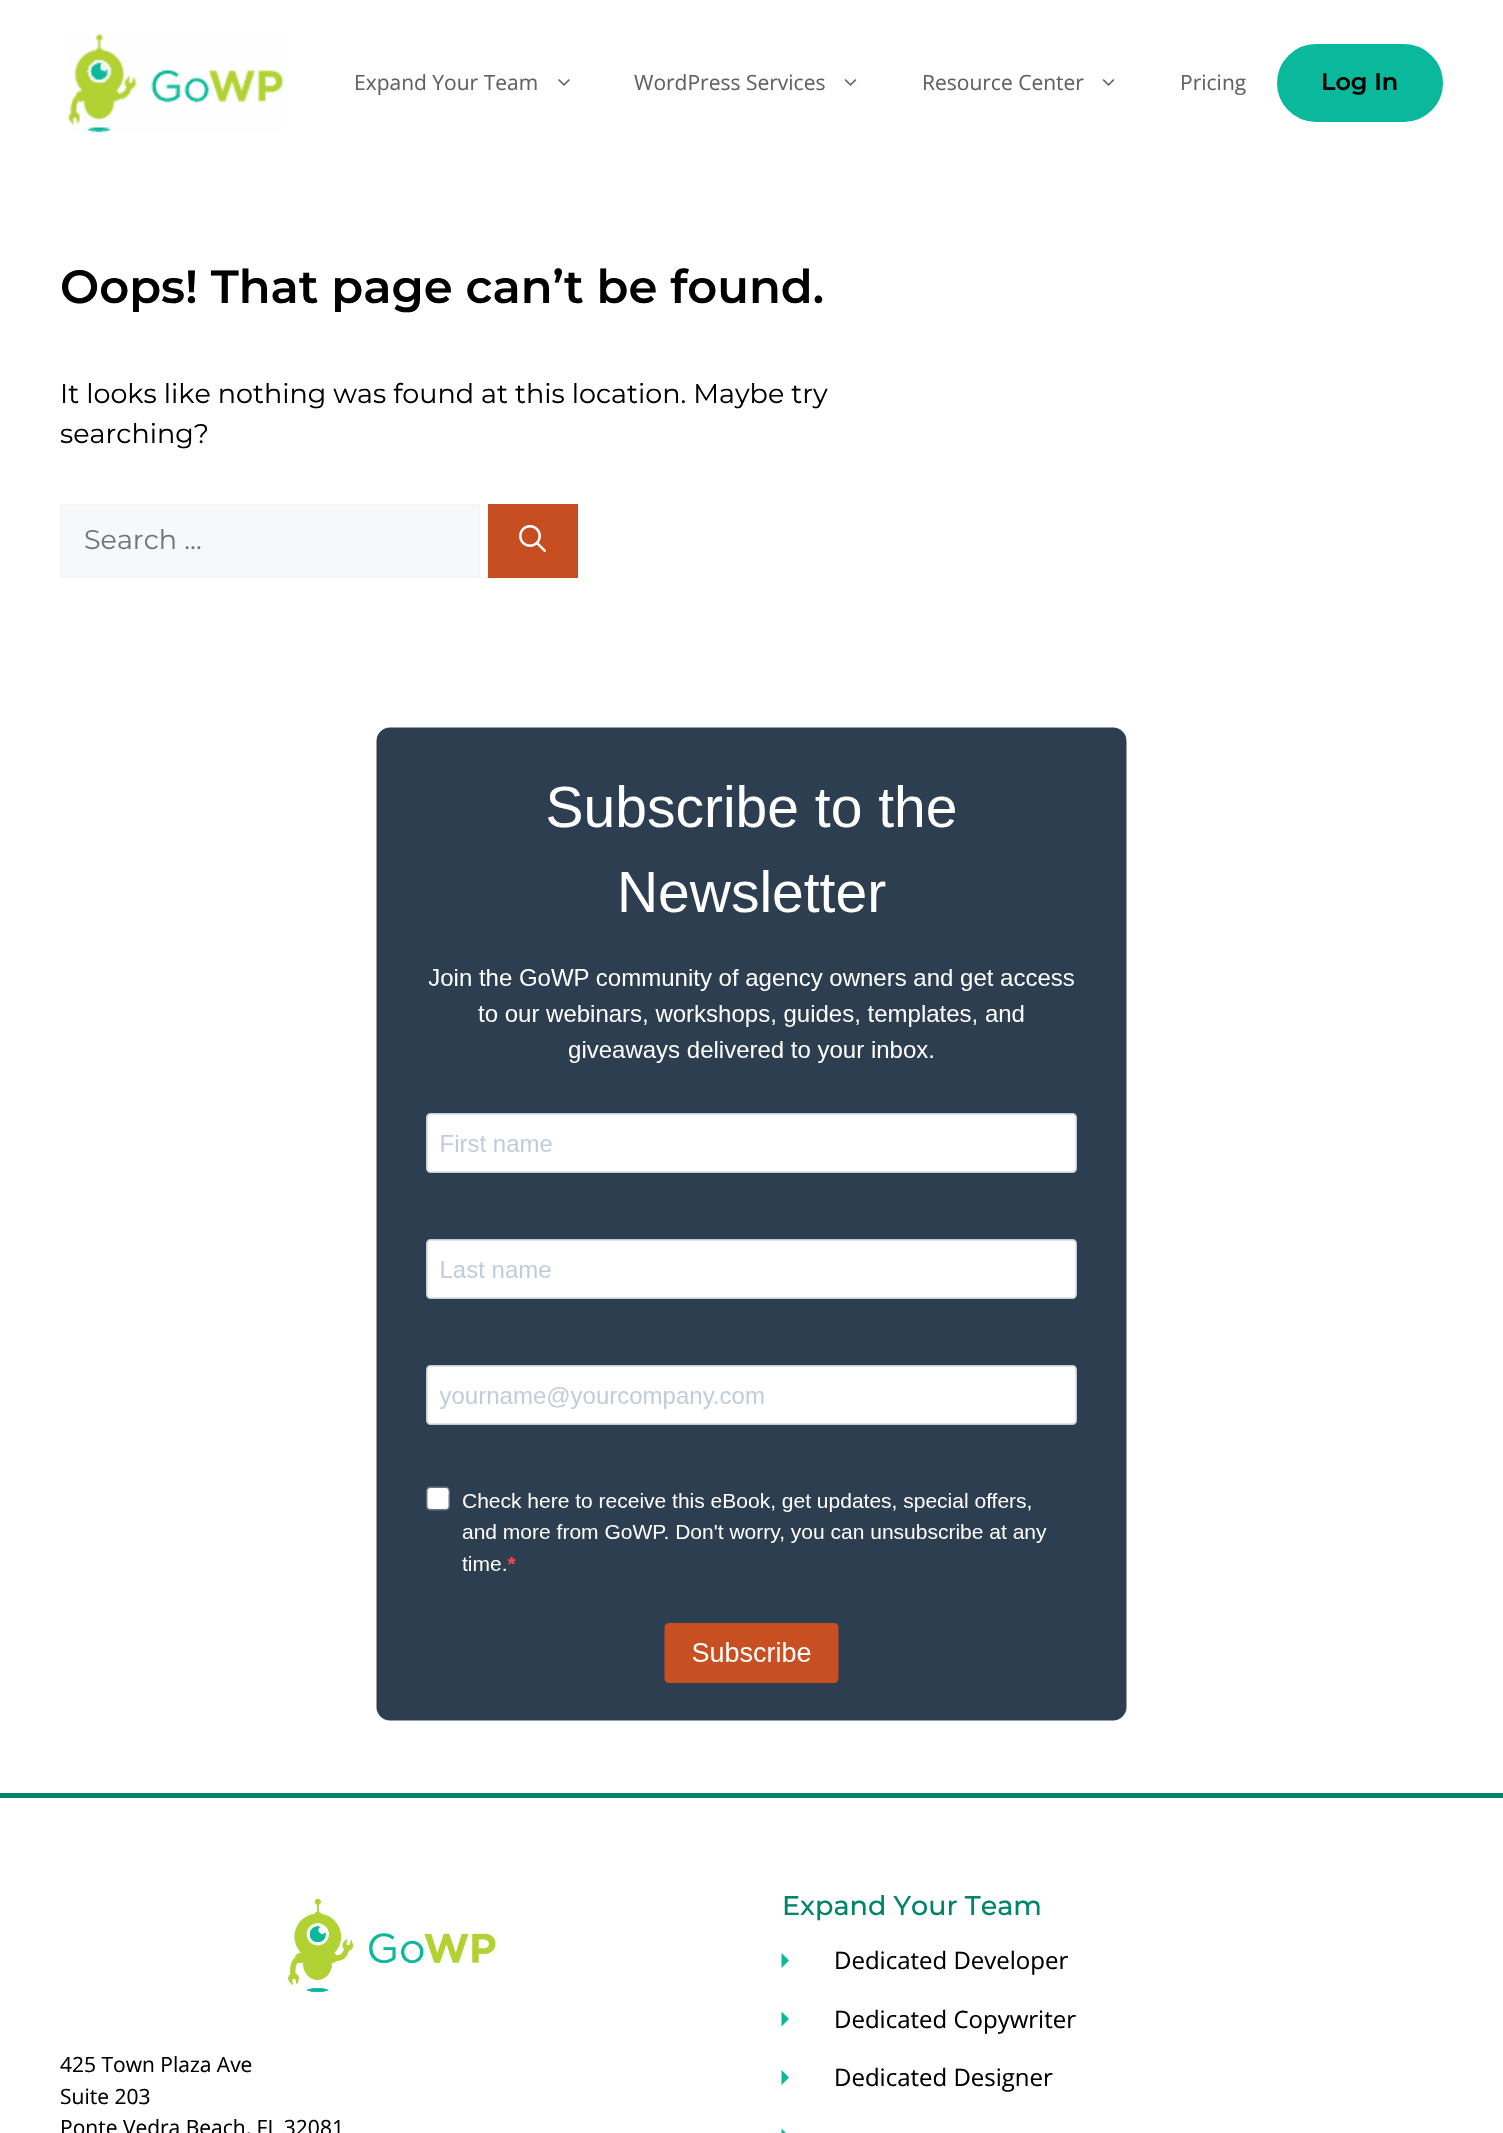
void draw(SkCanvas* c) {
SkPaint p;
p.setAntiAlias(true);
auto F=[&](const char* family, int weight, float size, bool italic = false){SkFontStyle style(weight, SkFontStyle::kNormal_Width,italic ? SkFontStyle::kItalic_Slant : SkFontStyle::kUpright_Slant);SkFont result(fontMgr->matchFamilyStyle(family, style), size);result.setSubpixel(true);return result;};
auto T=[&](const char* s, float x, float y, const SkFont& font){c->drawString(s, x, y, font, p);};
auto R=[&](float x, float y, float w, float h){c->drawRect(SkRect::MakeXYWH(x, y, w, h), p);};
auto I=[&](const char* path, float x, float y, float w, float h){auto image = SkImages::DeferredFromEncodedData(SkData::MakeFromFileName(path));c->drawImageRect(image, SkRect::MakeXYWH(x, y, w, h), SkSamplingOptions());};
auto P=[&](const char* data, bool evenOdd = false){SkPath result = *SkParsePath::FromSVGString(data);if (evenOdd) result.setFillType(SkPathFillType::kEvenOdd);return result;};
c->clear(0xffffffff);
I("1.png",67,34,217,99);
auto f1 = F("Open Sans",400,21);
p.setColor(0xff5f6163);
T("Expand Your Team",354,90,f1);
I("2.png",558,79,12,7);
T("WordPress Services",634,90,f1);
I("3.png",844,79,13,7);
T("Resource Center",922,90,f1);
I("3.png",1102,79,13,7);
T("Pricing",1180,90,f1);
p.setColor(0xff0ab89b);
c->drawRoundRect(SkRect::MakeXYWH(1278.5,45.5,163,75),37.5,37.5,p);
p.setStroke(true);
p.setStrokeWidth(3);
c->drawRoundRect(SkRect::MakeXYWH(1278.5,45.5,163,75),37.5,37.5,p);
auto f2 = F("Montserrat",600,24);
p.setStroke(false);
p.setColor(0xff000000);
T("Log In",1321,90,f2);
auto f3 = F("Montserrat",600,46.5);
T("Oops! That page can’t be found.",60,303,f3);
auto f4 = F("Montserrat",400,27);
T("It looks like nothing was found at this location. Maybe try",60,403,f4);
T("searching?",60,443,f4);
p.setColor(0xfff7f8f9);
c->drawRect(SkRect::MakeXYWH(61,505,418,72),p);
p.setStroke(true);
p.setStrokeWidth(2);
p.setColor(0xfff6f6f6);
c->drawRect(SkRect::MakeXYWH(61,505,418,72),p);
p.setStroke(false);
p.setColor(0xff757575);
T("Search …",84,549,f4);
p.setColor(0xffc54d20);
R(488,504,90,74);
I("4.png",519,525,27,27);
I("5.png",376,727,751,994);
p.setColor(0xff00856b);
R(0,1793,1503,5);
I("6.png",288,1898,208,95);
p.setColor(0xff000000);
T("425 Town Plaza Ave",60,2072,f1);
T("Suite 203",60,2104,f1);
T("Ponte Vedra Beach, FL 32081",60,2135,f1);
auto f5 = F("Montserrat",500,27);
p.setColor(0xff00856b);
T("Expand Your Team",782,1915,f5);
p.setColor(0xff0ab89b);
c->drawPath(P("M781.5 1968v-15l7.5 7.5z"),p);
auto f6 = F("Open Sans",400,24);
p.setColor(0xff000000);
T("Dedicated Developer",834,1969,f6);
p.setColor(0xff0ab89b);
c->drawPath(P("M781.5 2026.5v-15l7.5 7.5z"),p);
p.setColor(0xff000000);
T("Dedicated Copywriter",834,2028,f6);
p.setColor(0xff0ab89b);
c->drawPath(P("M781.5 2085v-15l7.5 7.5zm0 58.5v-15l7.5 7.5z"),p);
p.setColor(0xff000000);
T("Dedicated Designer",834,2086,f6);
}
